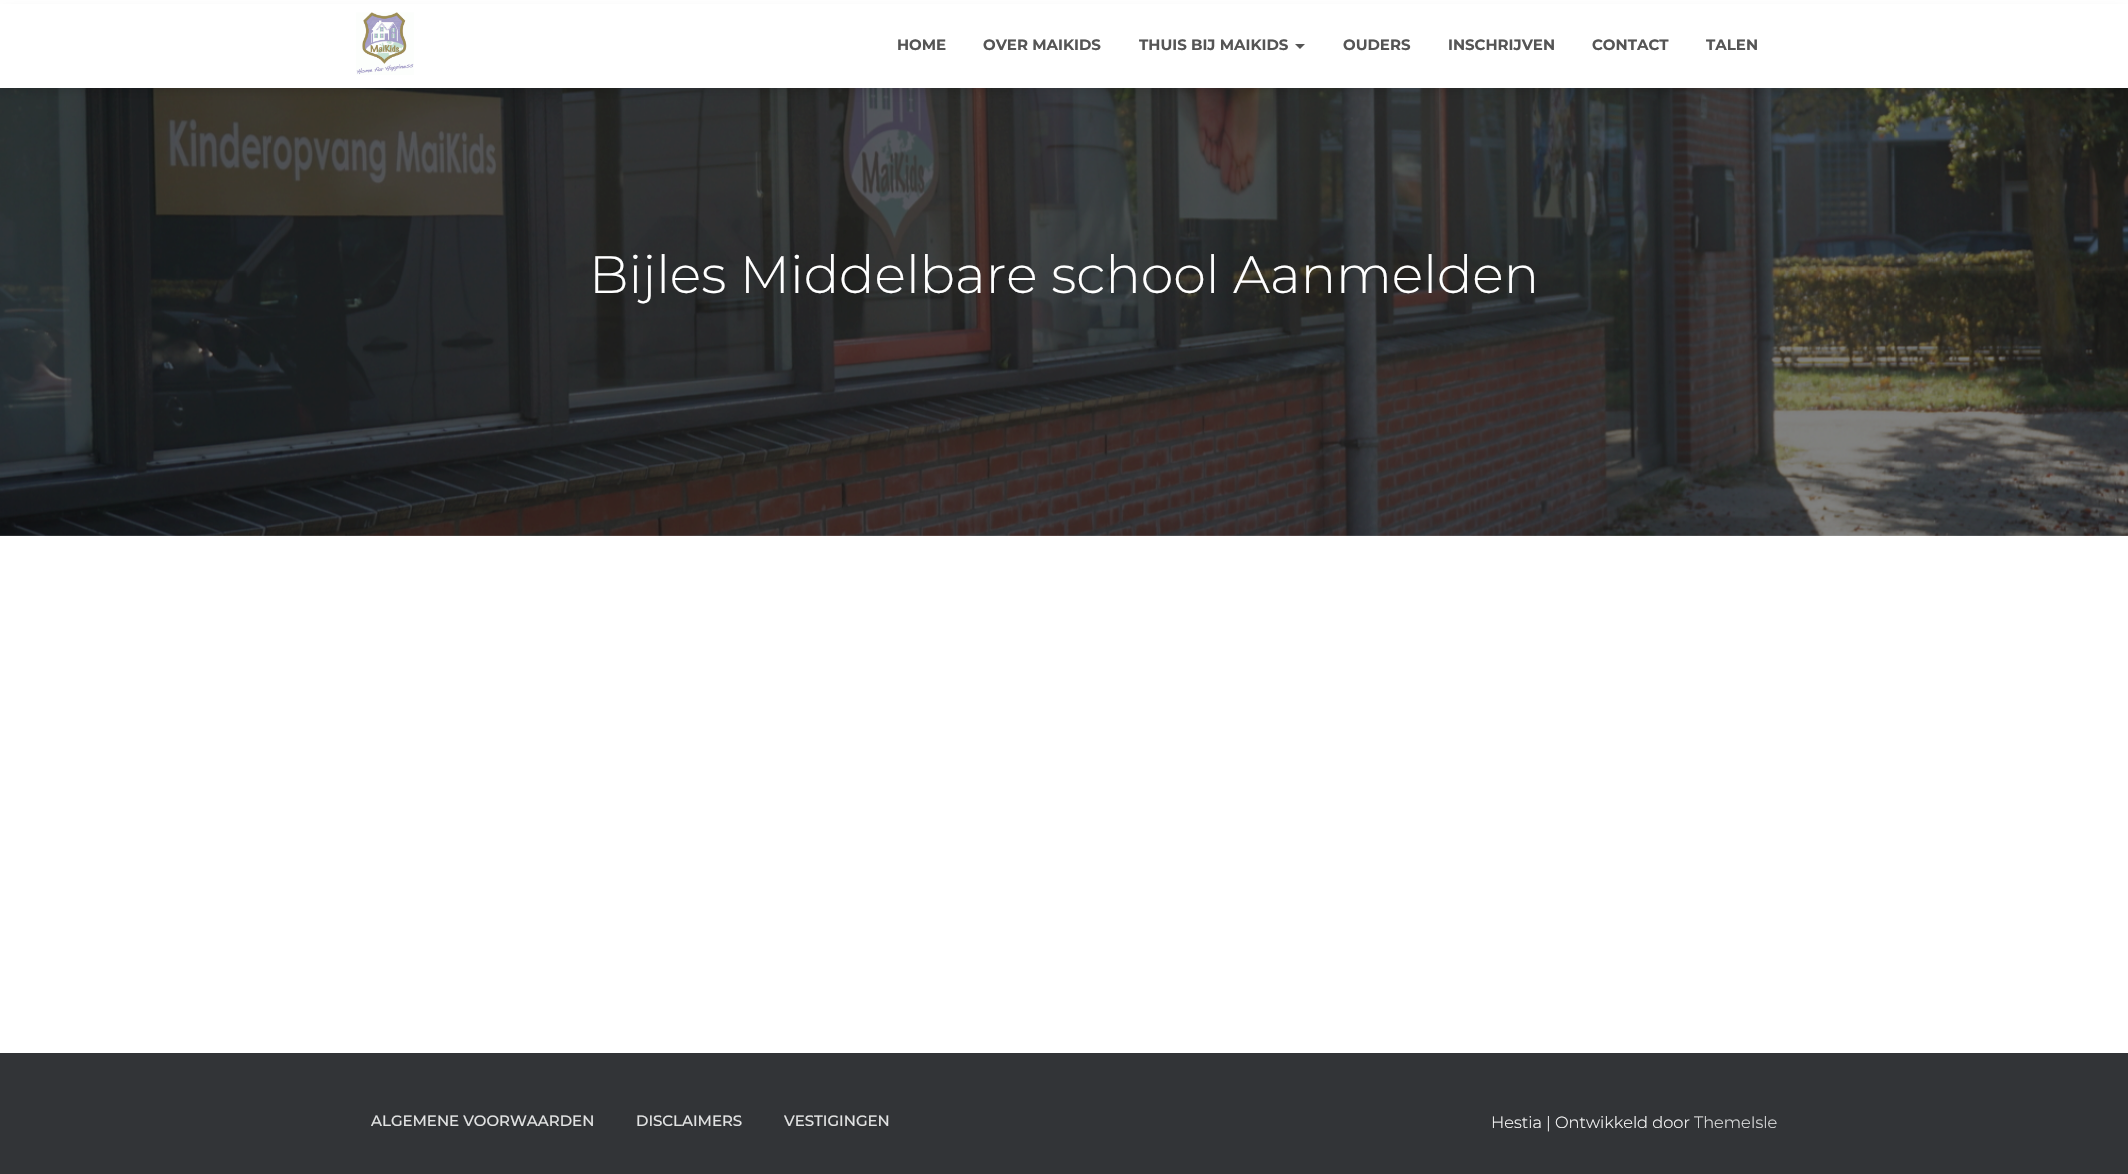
void draw(SkCanvas* c) {
SkPaint p;
p.setAntiAlias(true);
auto F=[&](const char* family, int weight, float size, bool italic = false){SkFontStyle style(weight, SkFontStyle::kNormal_Width,italic ? SkFontStyle::kItalic_Slant : SkFontStyle::kUpright_Slant);SkFont result(fontMgr->matchFamilyStyle(family, style), size);result.setSubpixel(true);return result;};
auto T=[&](const char* s, float x, float y, const SkFont& font){c->drawString(s, x, y, font, p);};
auto R=[&](float x, float y, float w, float h){c->drawRect(SkRect::MakeXYWH(x, y, w, h), p);};
auto I=[&](const char* path, float x, float y, float w, float h){auto image = SkImages::DeferredFromEncodedData(SkData::MakeFromFileName(path));c->drawImageRect(image, SkRect::MakeXYWH(x, y, w, h), SkSamplingOptions());};
auto P=[&](const char* data, bool evenOdd = false){SkPath result = *SkParsePath::FromSVGString(data);if (evenOdd) result.setFillType(SkPathFillType::kEvenOdd);return result;};
c->clear(0xffffffff);
I("2.png",0,88,2128,448);
p.setColor(0x26000000);
p.setMaskFilter(SkMaskFilter::MakeBlur(kNormal_SkBlurStyle, 6));
c->drawRect(SkRect::MakeXYWH(5,13,2119,77),p);
p.setMaskFilter(nullptr);
p.setColor(0xffffffff);
R(0,4,2128,84);
I("1.png",356,12,58,63);
auto f1 = F("Montserrat",700,15);
p.setColor(0xff555555);
T("HOME",897,50,f1);
T("OVER MAIKIDS",983,50,f1);
T("THUIS BIJ MAIKIDS",1139,50,f1);
c->drawPath(P("M1295 44h10l-5 5z"),p);
T("OUDERS",1343,50,f1);
T("INSCHRIJVEN",1448,50,f1);
T("CONTACT",1592,50,f1);
T("TALEN",1706,50,f1);
auto f2 = F("Montserrat",300,52.5);
p.setColor(0xffffffff);
T("Bijles Middelbare school Aanmelden",589,293,f2);
p.setColor(0xff323437);
R(0,1053,2128,121);
auto f3 = F("Montserrat",500,15);
p.setColor(0xffe2e3e3);
T("ALGEMENE VOORWAARDEN",371,1126,f3);
T("DISCLAIMERS",636,1126,f3);
T("VESTIGINGEN",784,1126,f3);
auto f4 = F("Montserrat",300,16.25);
p.setColor(0xffffffff);
T("Hestia | Ontwikkeld door",1491,1128,f4);
p.setColor(0xffe2e3e3);
T("ThemeIsle",1694,1128,f4);
}
